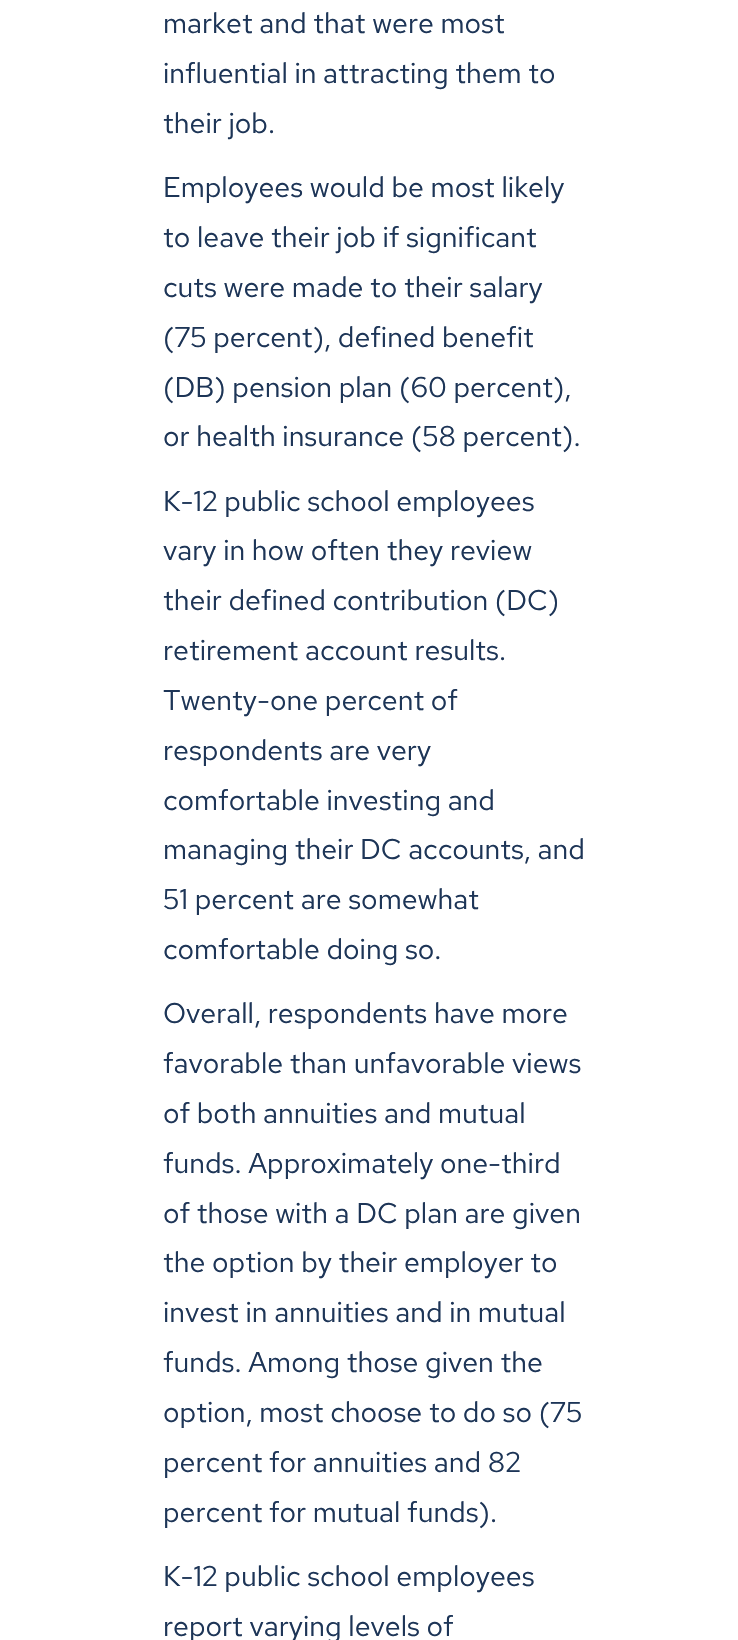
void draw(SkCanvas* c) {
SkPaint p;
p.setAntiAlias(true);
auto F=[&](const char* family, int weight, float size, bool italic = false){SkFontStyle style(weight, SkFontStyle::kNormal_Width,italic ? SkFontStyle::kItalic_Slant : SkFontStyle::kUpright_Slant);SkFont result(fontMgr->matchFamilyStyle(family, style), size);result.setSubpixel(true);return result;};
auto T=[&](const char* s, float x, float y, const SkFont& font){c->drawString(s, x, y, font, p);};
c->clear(0xffffffff);
auto f1 = F("Red Hat Text",400,28.5);
p.setColor(0xff1d3557);
T("market and that were most",163,33,f1);
T("influential in attracting them to",163,83,f1);
T("their job.",163,133,f1);
T("Employees would be most likely",163,197,f1);
T("to leave their job if significant",163,247,f1);
T("cuts were made to their salary",163,297,f1);
T("(75 percent), defined benefit",163,347,f1);
T("(DB) pension plan (60 percent),",163,397,f1);
T("or health insurance (58 percent).",163,446,f1);
T("K-12 public school employees",163,511,f1);
T("vary in how often they review",163,560,f1);
T("their defined contribution (DC)",163,610,f1);
T("retirement account results.",163,660,f1);
T("Twenty-one percent of",163,710,f1);
T("respondents are very",163,760,f1);
T("comfortable investing and",163,810,f1);
T("managing their DC accounts, and",163,859,f1);
T("51 percent are somewhat",163,909,f1);
T("comfortable doing so.",163,959,f1);
T("Overall, respondents have more",163,1023,f1);
T("favorable than unfavorable views",163,1073,f1);
T("of both annuities and mutual",163,1123,f1);
T("funds. Approximately one-third",163,1173,f1);
T("of those with a DC plan are given",163,1223,f1);
T("the option by their employer to",163,1272,f1);
T("invest in annuities and in mutual",163,1322,f1);
T("funds. Among those given the",163,1372,f1);
T("option, most choose to do so (75",163,1422,f1);
T("percent for annuities and 82",163,1472,f1);
T("percent for mutual funds).",163,1522,f1);
T("K-12 public school employees",163,1586,f1);
T("report varying levels of",163,1636,f1);
}
